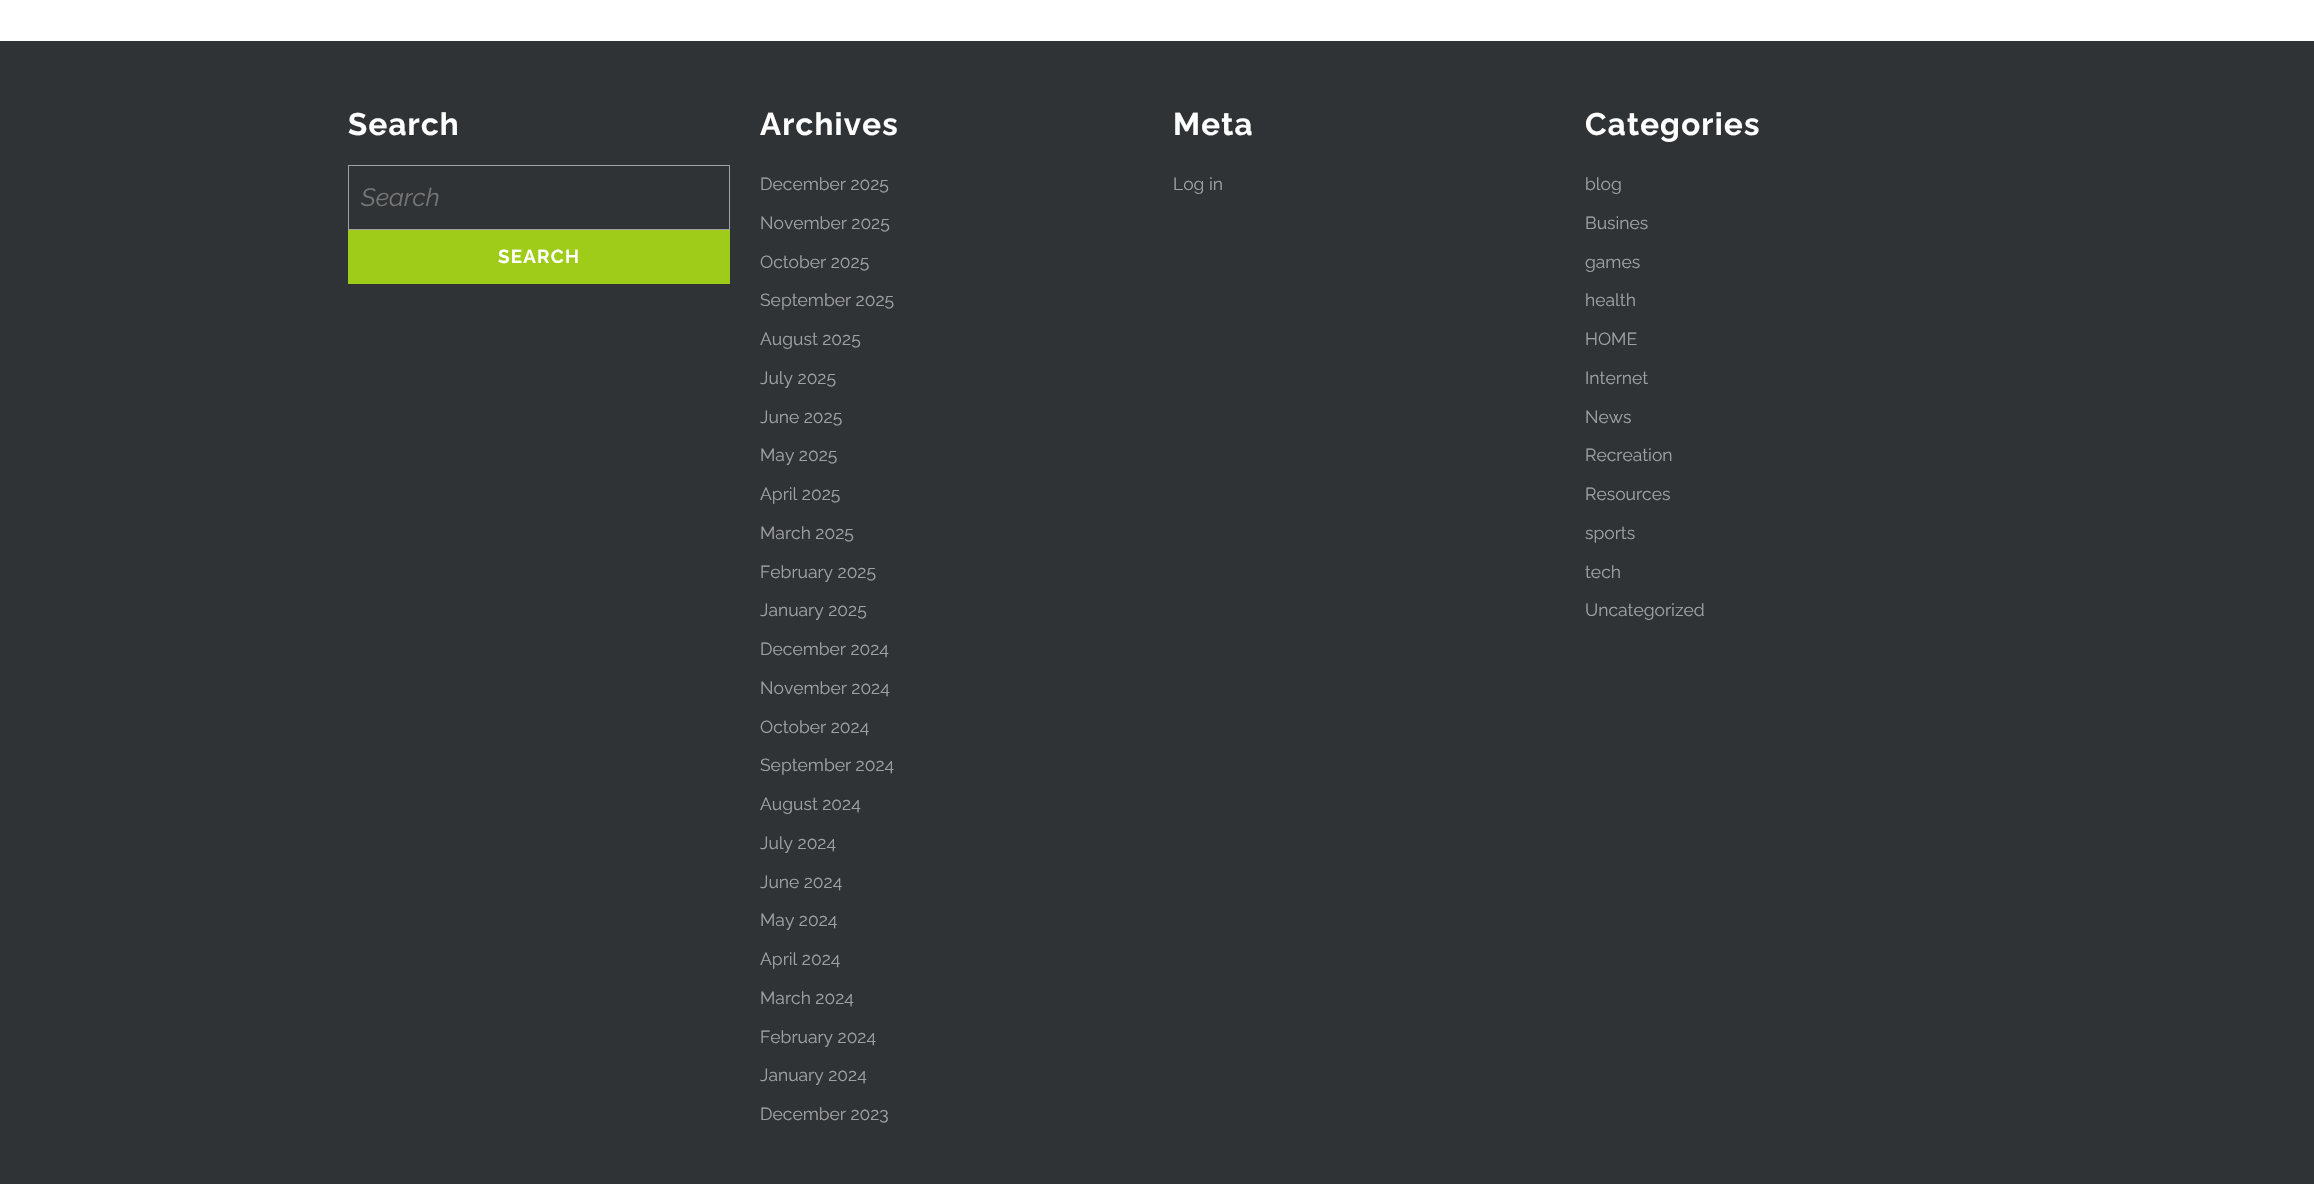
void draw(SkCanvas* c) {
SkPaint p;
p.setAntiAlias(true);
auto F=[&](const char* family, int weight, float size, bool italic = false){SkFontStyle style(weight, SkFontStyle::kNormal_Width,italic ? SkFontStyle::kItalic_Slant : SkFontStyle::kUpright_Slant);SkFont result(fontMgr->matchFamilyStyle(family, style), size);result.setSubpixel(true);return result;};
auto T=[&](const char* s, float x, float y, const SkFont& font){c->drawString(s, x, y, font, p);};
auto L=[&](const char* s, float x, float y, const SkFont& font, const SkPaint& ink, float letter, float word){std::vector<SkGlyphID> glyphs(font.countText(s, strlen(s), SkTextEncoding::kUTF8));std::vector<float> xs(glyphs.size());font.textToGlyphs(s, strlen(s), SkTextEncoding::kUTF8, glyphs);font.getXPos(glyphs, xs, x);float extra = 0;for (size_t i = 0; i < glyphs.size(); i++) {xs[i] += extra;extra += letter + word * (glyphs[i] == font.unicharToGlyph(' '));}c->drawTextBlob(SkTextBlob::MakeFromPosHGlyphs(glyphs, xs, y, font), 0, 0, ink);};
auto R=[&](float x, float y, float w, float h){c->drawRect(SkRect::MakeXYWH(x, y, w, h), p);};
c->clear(0xffffffff);
p.setColor(0xff303336);
R(0,41,2314,1143);
auto f1 = F("Raleway",700,31.25);
p.setColor(0xffffffff);
L("Search",348,135,f1,p,1.25,0);
p.setStroke(true);
p.setStrokeWidth(1);
p.setColor(0xffa0a1a2);
c->drawRect(SkRect::MakeXYWH(348.5,165.5,381,64),p);
auto f2 = F("Raleway",100,25,true);
p.setStroke(false);
p.setColor(0xff757575);
T("Search",361,206,f2);
p.setColor(0xff9ecc19);
R(348,230,382,54);
auto f3 = F("Raleway",700,18.75);
p.setColor(0xffffffff);
L("SEARCH",498,263,f3,p,1.25,0);
L("Archives",760,135,f1,p,1.25,0);
auto f4 = F("Raleway",400,17.5);
p.setColor(0xffa0a1a2);
T("December 2025",760,190,f4);
T("November 2025",760,229,f4);
T("October 2025",760,268,f4);
T("September 2025",760,306,f4);
T("August 2025",760,345,f4);
T("July 2025",760,384,f4);
T("June 2025",760,423,f4);
T("May 2025",760,461,f4);
T("April 2025",760,500,f4);
T("March 2025",760,539,f4);
T("February 2025",760,578,f4);
T("January 2025",760,616,f4);
T("December 2024",760,655,f4);
T("November 2024",760,694,f4);
T("October 2024",760,733,f4);
T("September 2024",760,771,f4);
T("August 2024",760,810,f4);
T("July 2024",760,849,f4);
T("June 2024",760,888,f4);
T("May 2024",760,926,f4);
T("April 2024",760,965,f4);
T("March 2024",760,1004,f4);
T("February 2024",760,1043,f4);
T("January 2024",760,1081,f4);
T("December 2023",760,1120,f4);
p.setColor(0xffffffff);
L("Meta",1173,135,f1,p,1.25,0);
p.setColor(0xffa0a1a2);
T("Log in",1173,190,f4);
p.setColor(0xffffffff);
L("Categories",1585,135,f1,p,1.25,0);
p.setColor(0xffa0a1a2);
T("blog",1585,190,f4);
T("Busines",1585,229,f4);
T("games",1585,268,f4);
T("health",1585,306,f4);
T("HOME",1585,345,f4);
T("Internet",1585,384,f4);
T("News",1585,423,f4);
T("Recreation",1585,461,f4);
T("Resources",1585,500,f4);
T("sports",1585,539,f4);
T("tech",1585,578,f4);
T("Uncategorized",1585,616,f4);
}
